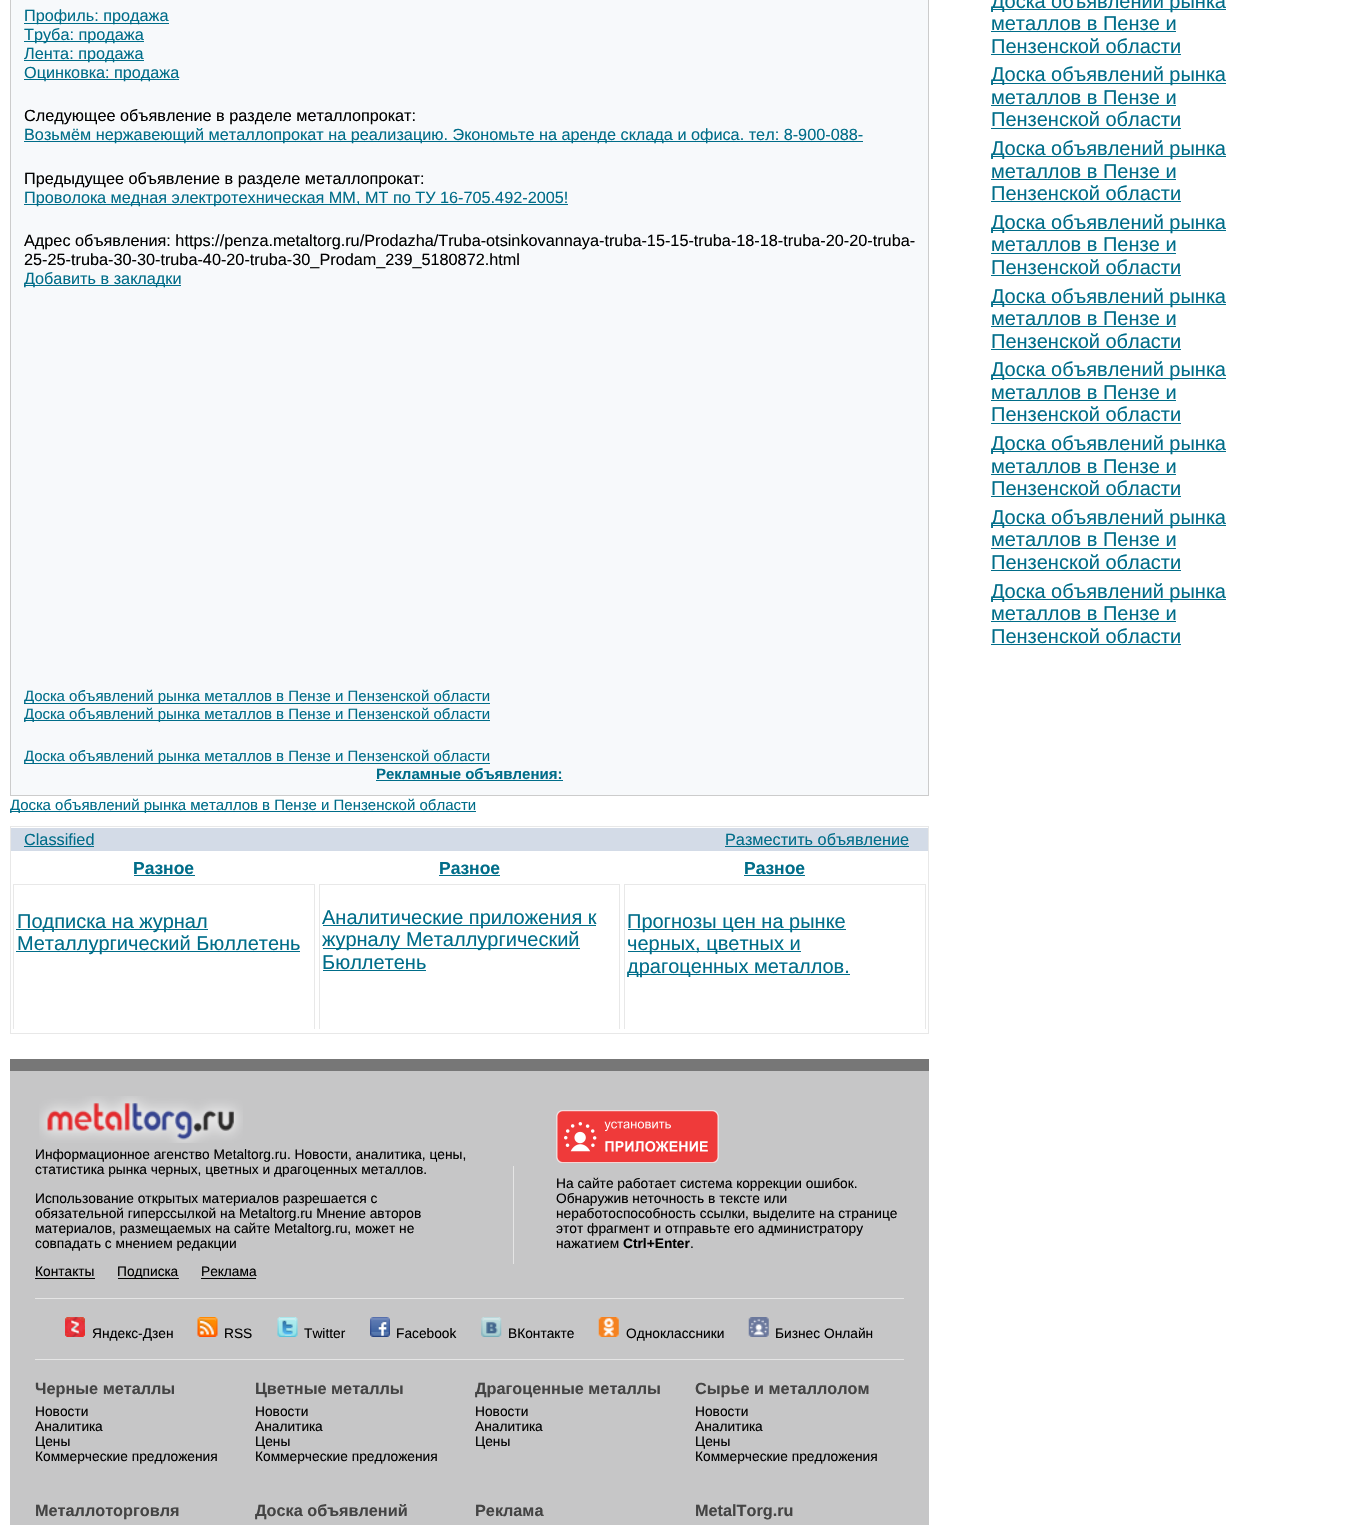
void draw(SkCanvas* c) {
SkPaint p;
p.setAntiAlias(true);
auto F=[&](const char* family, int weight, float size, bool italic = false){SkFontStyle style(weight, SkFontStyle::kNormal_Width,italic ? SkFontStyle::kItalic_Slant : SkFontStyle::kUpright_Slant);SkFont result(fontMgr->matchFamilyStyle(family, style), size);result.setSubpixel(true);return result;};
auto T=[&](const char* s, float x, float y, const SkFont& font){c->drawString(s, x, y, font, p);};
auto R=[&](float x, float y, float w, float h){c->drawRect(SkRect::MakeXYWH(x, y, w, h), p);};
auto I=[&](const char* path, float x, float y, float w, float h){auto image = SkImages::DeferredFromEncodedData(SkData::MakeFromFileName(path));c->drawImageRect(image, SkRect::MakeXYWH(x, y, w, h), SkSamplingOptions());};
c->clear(0xffffffff);
p.setColor(0xfff7f9fb);
c->drawRect(SkRect::MakeXYWH(10.5,-.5,918,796),p);
p.setStroke(true);
p.setStrokeWidth(1);
p.setColor(0xffcccccc);
c->drawRect(SkRect::MakeXYWH(10.5,-.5,918,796),p);
p.setStroke(false);
p.setColor(0xff006d89);
R(24,23,145,1);
auto f1 = F("Liberation Sans",400,16.25);
T("Профиль: продажа",24,21,f1);
R(24,41,120,1);
T("Труба: продажа",24,40,f1);
R(24,60,120,1);
T("Лента: продажа",24,59,f1);
R(24,79,155,1);
T("Оцинковка: продажа",24,78,f1);
p.setColor(0xff000000);
T("Следующее объявление в разделе металлопрокат:",24,121,f1);
p.setColor(0xff006d89);
R(24,141,839,1);
T("Возьмём нержавеющий металлопрокат на реализацию. Экономьте на аренде склада и офиса. тел: 8-900-088-",24,140,f1);
p.setColor(0xff000000);
T("Предыдущее объявление в разделе металлопрокат:",24,184,f1);
p.setColor(0xff006d89);
R(24,204,544,1);
T("Проволока медная электротехническая ММ, МТ по ТУ 16-705.492-2005!",24,203,f1);
p.setColor(0xff000000);
T("Адрес объявления: https://penza.metaltorg.ru/Prodazha/Truba-otsinkovannaya-truba-15-15-truba-18-18-truba-20-20-truba-",24,246,f1);
T("25-25-truba-30-30-truba-40-20-truba-30_Prodam_239_5180872.html",24,265,f1);
p.setColor(0xff006d89);
R(24,285,157,1);
T("Добавить в закладки",24,284,f1);
R(24,703,466,1);
auto f2 = F("Liberation Sans",400,15);
T("Доска объявлений рынка металлов в Пензе и Пензенской области",24,701,f2);
R(24,720,466,1);
T("Доска объявлений рынка металлов в Пензе и Пензенской области",24,719,f2);
R(24,763,466,1);
T("Доска объявлений рынка металлов в Пензе и Пензенской области",24,761,f2);
auto f3 = F("Liberation Sans",700,15);
T("Рекламные объявления:",376,779,f3);
R(376,780,187,1);
R(10,811,466,1);
T("Доска объявлений рынка металлов в Пензе и Пензенской области",10,810,f2);
R(991,9,235,1);
auto f4 = F("Liberation Sans",400,20);
T("Доска объявлений рынка",991,8,f4);
T("металлов в Пензе и",991,30,f4);
R(991,31,185,1);
T("Пензенской области",991,53,f4);
R(991,54,190,1);
R(991,83,235,1);
T("Доска объявлений рынка",991,81,f4);
T("металлов в Пензе и",991,104,f4);
R(991,105,185,1);
T("Пензенской области",991,126,f4);
R(991,128,190,1);
R(991,156,235,1);
T("Доска объявлений рынка",991,155,f4);
T("металлов в Пензе и",991,178,f4);
R(991,179,185,1);
T("Пензенской области",991,200,f4);
R(991,201,190,1);
R(991,230,235,1);
T("Доска объявлений рынка",991,229,f4);
T("металлов в Пензе и",991,251,f4);
R(991,253,185,1);
T("Пензенской области",991,274,f4);
R(991,275,190,1);
R(991,304,235,1);
T("Доска объявлений рынка",991,303,f4);
T("металлов в Пензе и",991,325,f4);
R(991,326,185,1);
T("Пензенской области",991,348,f4);
R(991,349,190,1);
R(991,378,235,1);
T("Доска объявлений рынка",991,376,f4);
T("металлов в Пензе и",991,399,f4);
R(991,400,185,1);
T("Пензенской области",991,421,f4);
R(991,423,190,1);
R(991,451,235,1);
T("Доска объявлений рынка",991,450,f4);
T("металлов в Пензе и",991,473,f4);
R(991,474,185,1);
T("Пензенской области",991,495,f4);
R(991,496,190,1);
R(991,525,235,1);
T("Доска объявлений рынка",991,524,f4);
T("металлов в Пензе и",991,546,f4);
R(991,548,185,1);
T("Пензенской области",991,569,f4);
R(991,570,190,1);
R(991,599,235,1);
T("Доска объявлений рынка",991,598,f4);
T("металлов в Пензе и",991,620,f4);
R(991,621,185,1);
T("Пензенской области",991,643,f4);
R(991,644,190,1);
p.setStroke(true);
p.setColor(0xffe8e8e8);
c->drawRect(SkRect::MakeXYWH(10.5,826.5,918,207),p);
p.setStroke(false);
p.setColor(0xffd3dbe7);
R(11,828,917,23);
p.setColor(0xff006d89);
T("Classified",24,845,f1);
R(24,846,70,1);
T("Разместить объявление",725,845,f1);
R(725,846,184,1);
auto f5 = F("Liberation Sans",700,17.5);
T("Разное",133,874,f5);
R(134,875,61,1);
p.setColor(0xff777777);
R(10,1059,919,12);
c->save();
c->clipRect(SkRect::MakeXYWH(13,851,302,178));
p.setStroke(true);
p.setColor(0xffe8e8e8);
c->drawRect(SkRect::MakeXYWH(13.5,884.5,301,184),p);
c->restore();
p.setStroke(false);
p.setColor(0xff006d89);
R(16,929,192,1);
T("Подписка на журнал",17,928,f4);
R(16,951,284,1);
T("Металлургический Бюллетень",17,950,f4);
T("Разное",439,874,f5);
R(439,875,61,1);
c->save();
c->clipRect(SkRect::MakeXYWH(319,851,301,178));
p.setStroke(true);
p.setColor(0xffe8e8e8);
c->drawRect(SkRect::MakeXYWH(319.5,884.5,300,184),p);
c->restore();
p.setStroke(false);
p.setColor(0xff006d89);
R(323,925,273,1);
T("Аналитические приложения к",322,924,f4);
R(323,948,257,1);
T("журналу Металлургический",322,946,f4);
T("Бюллетень",322,969,f4);
R(323,970,103,1);
T("Разное",744,874,f5);
R(744,875,61,1);
c->save();
c->clipRect(SkRect::MakeXYWH(624,851,302,178));
p.setStroke(true);
p.setColor(0xffe8e8e8);
c->drawRect(SkRect::MakeXYWH(624.5,884.5,301,184),p);
c->restore();
p.setStroke(false);
p.setColor(0xff006d89);
R(628,929,218,1);
T("Прогнозы цен на рынке",627,928,f4);
R(628,951,173,1);
T("черных, цветных и",627,950,f4);
R(628,974,222,1);
T("драгоценных металлов.",627,973,f4);
p.setColor(0xffc6c6c7);
R(10,1071,919,454);
I("1.png",39,1096,204,47);
auto f6 = F("Liberation Sans",400,13.75);
p.setColor(0xff000000);
T("Информационное агенство Metaltorg.ru. Новости, аналитика, цены,",35,1159,f6);
T("статистика рынка черных, цветных и драгоценных металлов.",35,1174,f6);
T("Использование открытых материалов разрешается с",35,1203,f6);
T("обязательной гиперссылкой на Metaltorg.ru Мнение авторов",35,1218,f6);
T("материалов, размещаемых на сайте Metaltorg.ru, может не",35,1233,f6);
T("совпадать с мнением редакции",35,1248,f6);
p.setColor(0xffe5e5e5);
R(513,1166,1,98);
I("2.png",556,1110,163,53);
p.setColor(0xff000000);
T("На сайте работает система коррекции ошибок.",556,1188,f6);
T("Обнаружив неточность в тексте или",556,1203,f6);
T("неработоспособность ссылки, выделите на странице",556,1218,f6);
T("этот фрагмент и отправьте его администратору",556,1233,f6);
T("нажатием",556,1248,f6);
auto f7 = F("Liberation Sans",700,13.75);
T("Ctrl+Enter",623,1248,f7);
T(".",690,1248,f6);
T("Контакты",35,1276,f6);
R(35,1278,60,1);
R(118,1278,61,1);
T("Подписка",117,1276,f6);
T("Реклама",201,1276,f6);
R(201,1278,55,1);
p.setColor(0xffe5e5e5);
R(35,1298,869,1);
R(35,1359,869,1);
I("3.png",65,1317,20,20);
p.setColor(0xff000000);
T("Яндекс-Дзен",92,1338,f6);
I("4.png",197,1317,21,20);
T("RSS",224,1338,f6);
I("5.png",277,1317,21,20);
T("Twitter",304,1338,f6);
I("6.png",370,1317,20,20);
T("Facebook",396,1338,f6);
I("7.png",481,1317,21,20);
T("ВКонтакте",508,1338,f6);
I("8.png",598,1317,21,20);
T("Одноклассники",626,1338,f6);
I("9.png",748,1317,21,20);
T("Бизнес Онлайн",775,1338,f6);
auto f8 = F("Liberation Sans",700,16.25);
p.setColor(0xff444444);
T("Черные металлы",35,1394,f8);
p.setColor(0xff000000);
T("Новости",35,1416,f6);
T("Аналитика",35,1431,f6);
T("Цены",35,1446,f6);
T("Коммерческие предложения",35,1461,f6);
p.setColor(0xff444444);
T("Цветные металлы",255,1394,f8);
p.setColor(0xff000000);
T("Новости",255,1416,f6);
T("Аналитика",255,1431,f6);
T("Цены",255,1446,f6);
T("Коммерческие предложения",255,1461,f6);
p.setColor(0xff444444);
T("Драгоценные металлы",475,1394,f8);
p.setColor(0xff000000);
T("Новости",475,1416,f6);
T("Аналитика",475,1431,f6);
T("Цены",475,1446,f6);
p.setColor(0xff444444);
T("Сырье и металлолом",695,1394,f8);
p.setColor(0xff000000);
T("Новости",695,1416,f6);
T("Аналитика",695,1431,f6);
T("Цены",695,1446,f6);
T("Коммерческие предложения",695,1461,f6);
p.setColor(0xff444444);
T("Металлоторговля",35,1516,f8);
T("Доска объявлений",255,1516,f8);
T("Реклама",475,1516,f8);
T("MetalTorg.ru",695,1516,f8);
}
